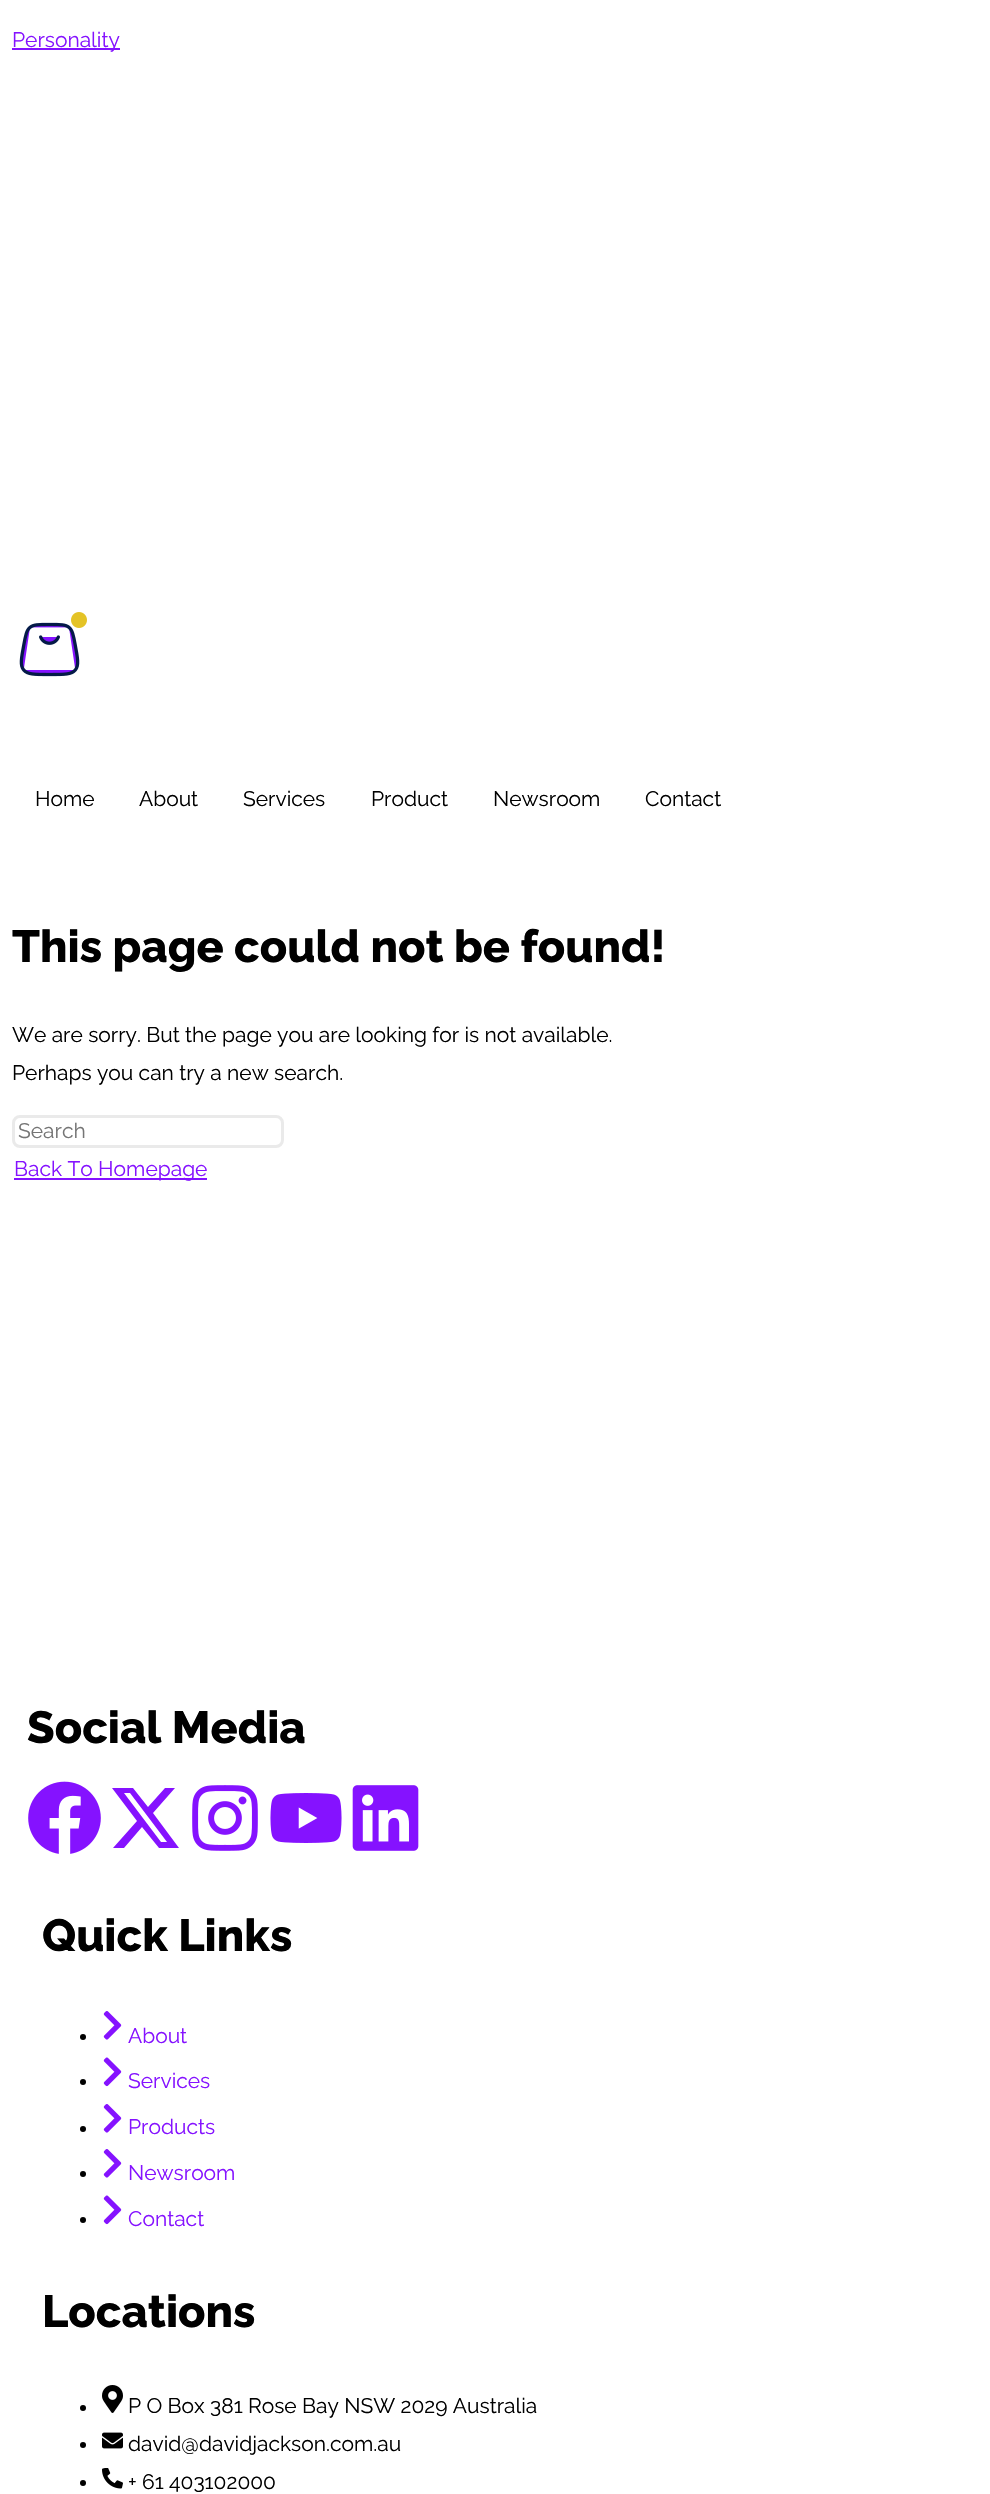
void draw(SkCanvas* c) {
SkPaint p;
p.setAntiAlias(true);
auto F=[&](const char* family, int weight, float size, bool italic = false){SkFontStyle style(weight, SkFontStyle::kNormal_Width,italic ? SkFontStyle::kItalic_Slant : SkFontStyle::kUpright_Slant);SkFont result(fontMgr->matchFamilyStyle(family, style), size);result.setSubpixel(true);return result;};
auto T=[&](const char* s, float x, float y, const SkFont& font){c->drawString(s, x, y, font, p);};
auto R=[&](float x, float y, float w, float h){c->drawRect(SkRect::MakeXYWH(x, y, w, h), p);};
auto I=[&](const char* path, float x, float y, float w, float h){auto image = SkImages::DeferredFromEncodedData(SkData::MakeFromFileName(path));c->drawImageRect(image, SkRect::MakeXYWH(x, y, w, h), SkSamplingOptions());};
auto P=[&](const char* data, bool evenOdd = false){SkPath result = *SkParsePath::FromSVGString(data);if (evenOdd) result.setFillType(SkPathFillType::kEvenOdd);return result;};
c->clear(0xffffffff);
p.setColor(0xff8512ff);
R(12,48,108,2);
auto f1 = F("Raleway",400,21);
T("Personality",12,47,f1);
I("1.png",19,612,68,65);
p.setColor(0xff000000);
T("Home",35,806,f1);
T("About",139,806,f1);
T("Services",243,806,f1);
T("Product",371,806,f1);
T("Newsroom",493,806,f1);
T("Contact",645,806,f1);
auto f2 = F("Raleway",800,45);
T("This page could not be found!",12,962,f2);
T("We are sorry. But the page you are looking for is not available.",12,1042,f1);
T("Perhaps you can try a new search.",12,1080,f1);
p.setStroke(true);
p.setStrokeWidth(3);
p.setColor(0xffeaeaea);
c->drawRoundRect(SkRect::MakeXYWH(13.5,1116.5,269,30),6.5,6.5,p);
p.setStroke(false);
p.setColor(0xff757575);
T("Search",18,1138,f1);
p.setColor(0xff8512ff);
R(14,1178,193,2);
T("Back To Homepage",14,1176,f1);
p.setColor(0xff000000);
T("Social Media",27,1743,f2);
I("2.png",28,1781,73,73);
p.setColor(0xff8512ff);
c->drawPath(P("M165 1788h10l-22 25l26 35h-20l-17-21l-18 21h-11l24-27l-25-33h21l15 19zm-4 54h6l-37-49h-6z"),p);
I("3.png",192,1785,66,66);
I("4.png",270,1793,72,50);
I("5.png",352,1785,67,66);
p.setColor(0xff000000);
T("Quick Links",42,1951,f2);
c->drawCircle(83,2037,3,p);
I("6.png",103,2011,19,29);
p.setColor(0xff8512ff);
T("About",128,2043,f1);
p.setColor(0xff000000);
c->drawCircle(83,2082,3,p);
I("7.png",103,2057,19,30);
p.setColor(0xff8512ff);
T("Services",128,2088,f1);
p.setColor(0xff000000);
c->drawCircle(83,2129,3,p);
I("6.png",103,2104,19,29);
p.setColor(0xff8512ff);
T("Products",128,2134,f1);
p.setColor(0xff000000);
c->drawCircle(83,2174,3,p);
I("6.png",103,2149,19,29);
p.setColor(0xff8512ff);
T("Newsroom",128,2180,f1);
p.setColor(0xff000000);
c->drawCircle(83,2220,3,p);
I("7.png",103,2195,19,30);
p.setColor(0xff8512ff);
T("Contact",128,2226,f1);
p.setColor(0xff000000);
T("Locations",42,2327,f2);
c->drawCircle(83,2408,3,p);
I("8.png",102,2385,21,28);
T("P O Box 381 Rose Bay NSW 2029 Australia",128,2413,f1);
c->drawCircle(83,2445,3,p);
I("9.png",102,2432,21,17);
T("david@davidjackson.com.au",128,2451,f1);
c->drawCircle(83,2483,3,p);
I("10.png",102,2468,21,21);
T("+ 61 403102000",128,2489,f1);
}
